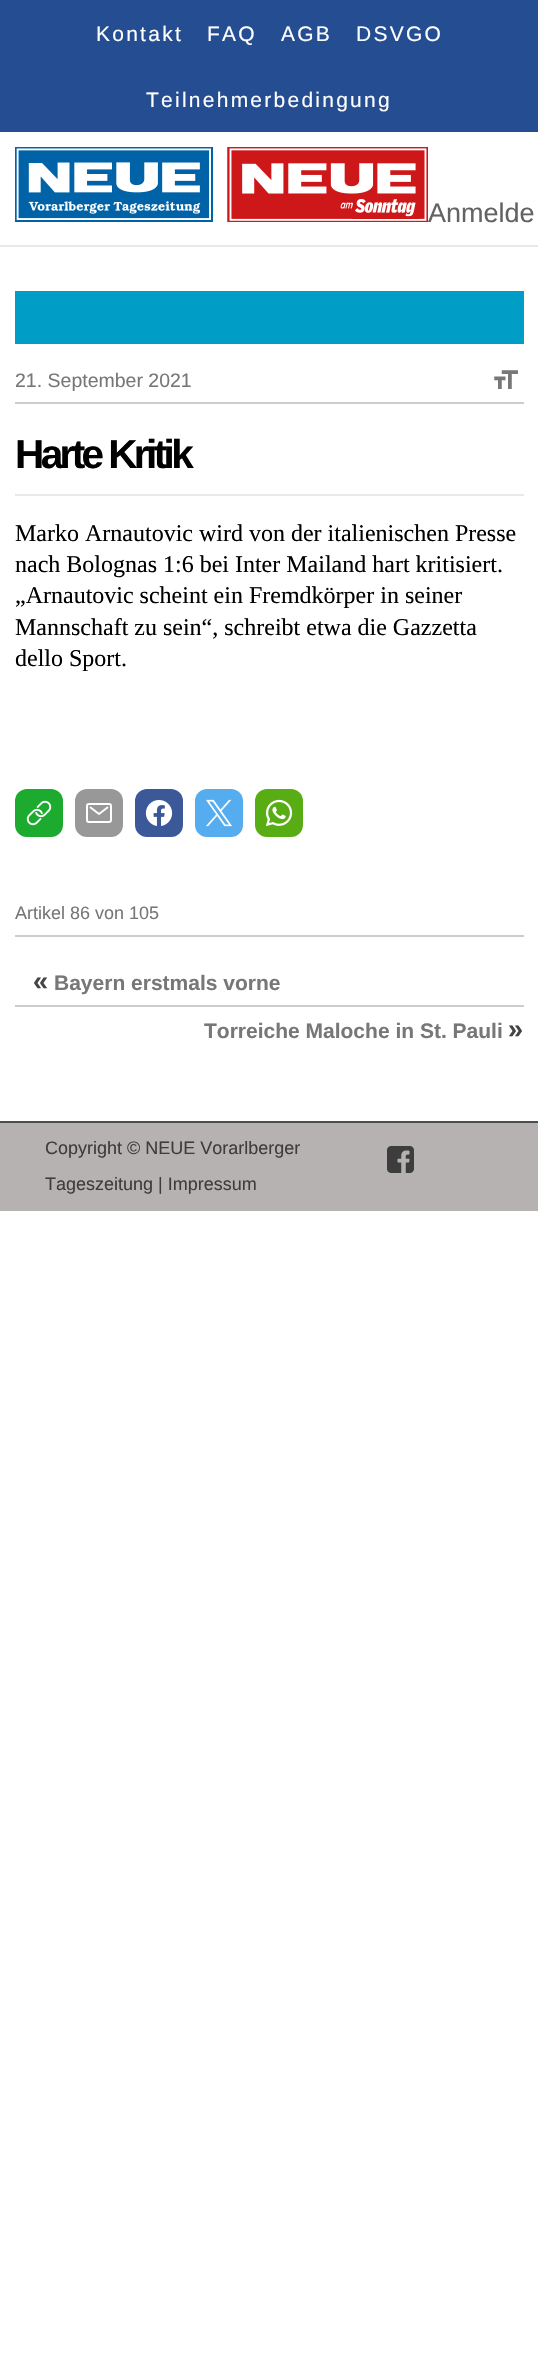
void draw(SkCanvas* c) {
SkPaint p;
p.setAntiAlias(true);
auto F=[&](const char* family, int weight, float size, bool italic = false){SkFontStyle style(weight, SkFontStyle::kNormal_Width,italic ? SkFontStyle::kItalic_Slant : SkFontStyle::kUpright_Slant);SkFont result(fontMgr->matchFamilyStyle(family, style), size);result.setSubpixel(true);return result;};
auto T=[&](const char* s, float x, float y, const SkFont& font){c->drawString(s, x, y, font, p);};
auto L=[&](const char* s, float x, float y, const SkFont& font, const SkPaint& ink, float letter, float word){std::vector<SkGlyphID> glyphs(font.countText(s, strlen(s), SkTextEncoding::kUTF8));std::vector<float> xs(glyphs.size());font.textToGlyphs(s, strlen(s), SkTextEncoding::kUTF8, glyphs);font.getXPos(glyphs, xs, x);float extra = 0;for (size_t i = 0; i < glyphs.size(); i++) {xs[i] += extra;extra += letter + word * (glyphs[i] == font.unicharToGlyph(' '));}c->drawTextBlob(SkTextBlob::MakeFromPosHGlyphs(glyphs, xs, y, font), 0, 0, ink);};
auto R=[&](float x, float y, float w, float h){c->drawRect(SkRect::MakeXYWH(x, y, w, h), p);};
auto Q=[&](float x, float y, float w, float h, float radius){c->drawRoundRect(SkRect::MakeXYWH(x, y, w, h), radius, radius, p);};
auto I=[&](const char* path, float x, float y, float w, float h){auto image = SkImages::DeferredFromEncodedData(SkData::MakeFromFileName(path));c->drawImageRect(image, SkRect::MakeXYWH(x, y, w, h), SkSamplingOptions());};
auto P=[&](const char* data, bool evenOdd = false){SkPath result = *SkParsePath::FromSVGString(data);if (evenOdd) result.setFillType(SkPathFillType::kEvenOdd);return result;};
c->clear(0xffffffff);
p.setColor(0xffe9e9e9);
R(0,245,538,2);
p.setColor(0xff244d92);
R(0,0,538,132);
auto f1 = F("Liberation Sans",400,21);
p.setColor(0xffffffff);
L("Kontakt",96,41,f1,p,2.25,0);
L("FAQ",207,41,f1,p,2.25,0);
L("AGB",281,41,f1,p,2.25,0);
L("DSVGO",356,41,f1,p,2.25,0);
L("Teilnehmerbedingung",146,107,f1,p,2.25,0);
I("1.png",15,147,413,75);
auto f2 = F("Liberation Sans",400,27);
p.setColor(0xff636363);
T("Anmelde",428,222,f2);
p.setColor(0xff009dc6);
R(15,291,509,53);
p.setColor(0xffcccccc);
R(15,402,509,2);
auto f3 = F("Liberation Sans",400,19.5);
p.setColor(0xff777777);
T("21. September 2021",15,387,f3);
I("2.png",494,370,24,19);
p.setColor(0xffe9e9e9);
R(15,494,509,2);
auto f4 = F("Liberation Sans",700,40.5);
p.setColor(0xff000000);
L("Harte Kritik",15,468,f4,p,-3.6,0);
auto f5 = F("Liberation Serif",400,24);
T("Marko Arnautovic wird von der italienischen Presse",15,541,f5);
T("nach Bolognas 1:6 bei Inter Mailand hart kritisiert.",15,572,f5);
T("„Arnautovic scheint ein Fremdkörper in seiner",15,603,f5);
T("Mannschaft zu sein“, schreibt etwa die Gazzetta",15,635,f5);
T("dello Sport.",15,666,f5);
p.setColor(0xff1caa2f);
Q(15,789,48,48,12);
I("3.png",26,800,26,26);
p.setColor(0xff989898);
Q(75,789,48,48,12);
p.setStroke(true);
p.setStrokeWidth(2);
p.setColor(0xffffffff);
c->drawRoundRect(SkRect::MakeXYWH(87,804,24,18),2,2,p);
p.setStrokeWidth(1.9);
p.setStrokeCap(SkPaint::kRound_Cap);
p.setStrokeJoin(SkPaint::kRound_Join);
c->drawPath(P("M90.5 807.5l8.5 6.5l8.5-6.5"),p);
p.setStroke(false);
p.setColor(0xff3b5998);
Q(135,789,48,48,12);
I("4.png",145,800,28,26);
p.setColor(0xff55acee);
Q(195,789,48,48,12);
I("5.png",206,799,26,28);
p.setColor(0xff58ad15);
Q(255,789,48,48,12);
I("6.png",266,799,27,27);
p.setColor(0xffcccccc);
R(15,935,509,2);
auto f6 = F("Liberation Sans",400,18);
p.setColor(0xff777777);
T("Artikel 86 von 105",15,919,f6);
p.setColor(0xffcccccc);
R(15,1005,509,2);
auto f7 = F("Liberation Sans",700,27);
p.setColor(0xff444444);
T("«",33,990,f7);
auto f8 = F("Liberation Sans",700,21);
p.setColor(0xff777777);
T("Bayern erstmals vorne",54,990,f8);
T("Torreiche Maloche in St. Pauli",204,1038,f8);
p.setColor(0xff444444);
T("»",508,1038,f7);
p.setColor(0xffb7b2b2);
R(0,1123,538,88);
p.setColor(0xff4b4c4d);
R(0,1121,538,2);
p.setColor(0xff3d3d3d);
T("Copyright © NEUE Vorarlberger",45,1154,f6);
T("Tageszeitung | Impressum",45,1190,f6);
I("7.png",387,1146,27,27);
}
